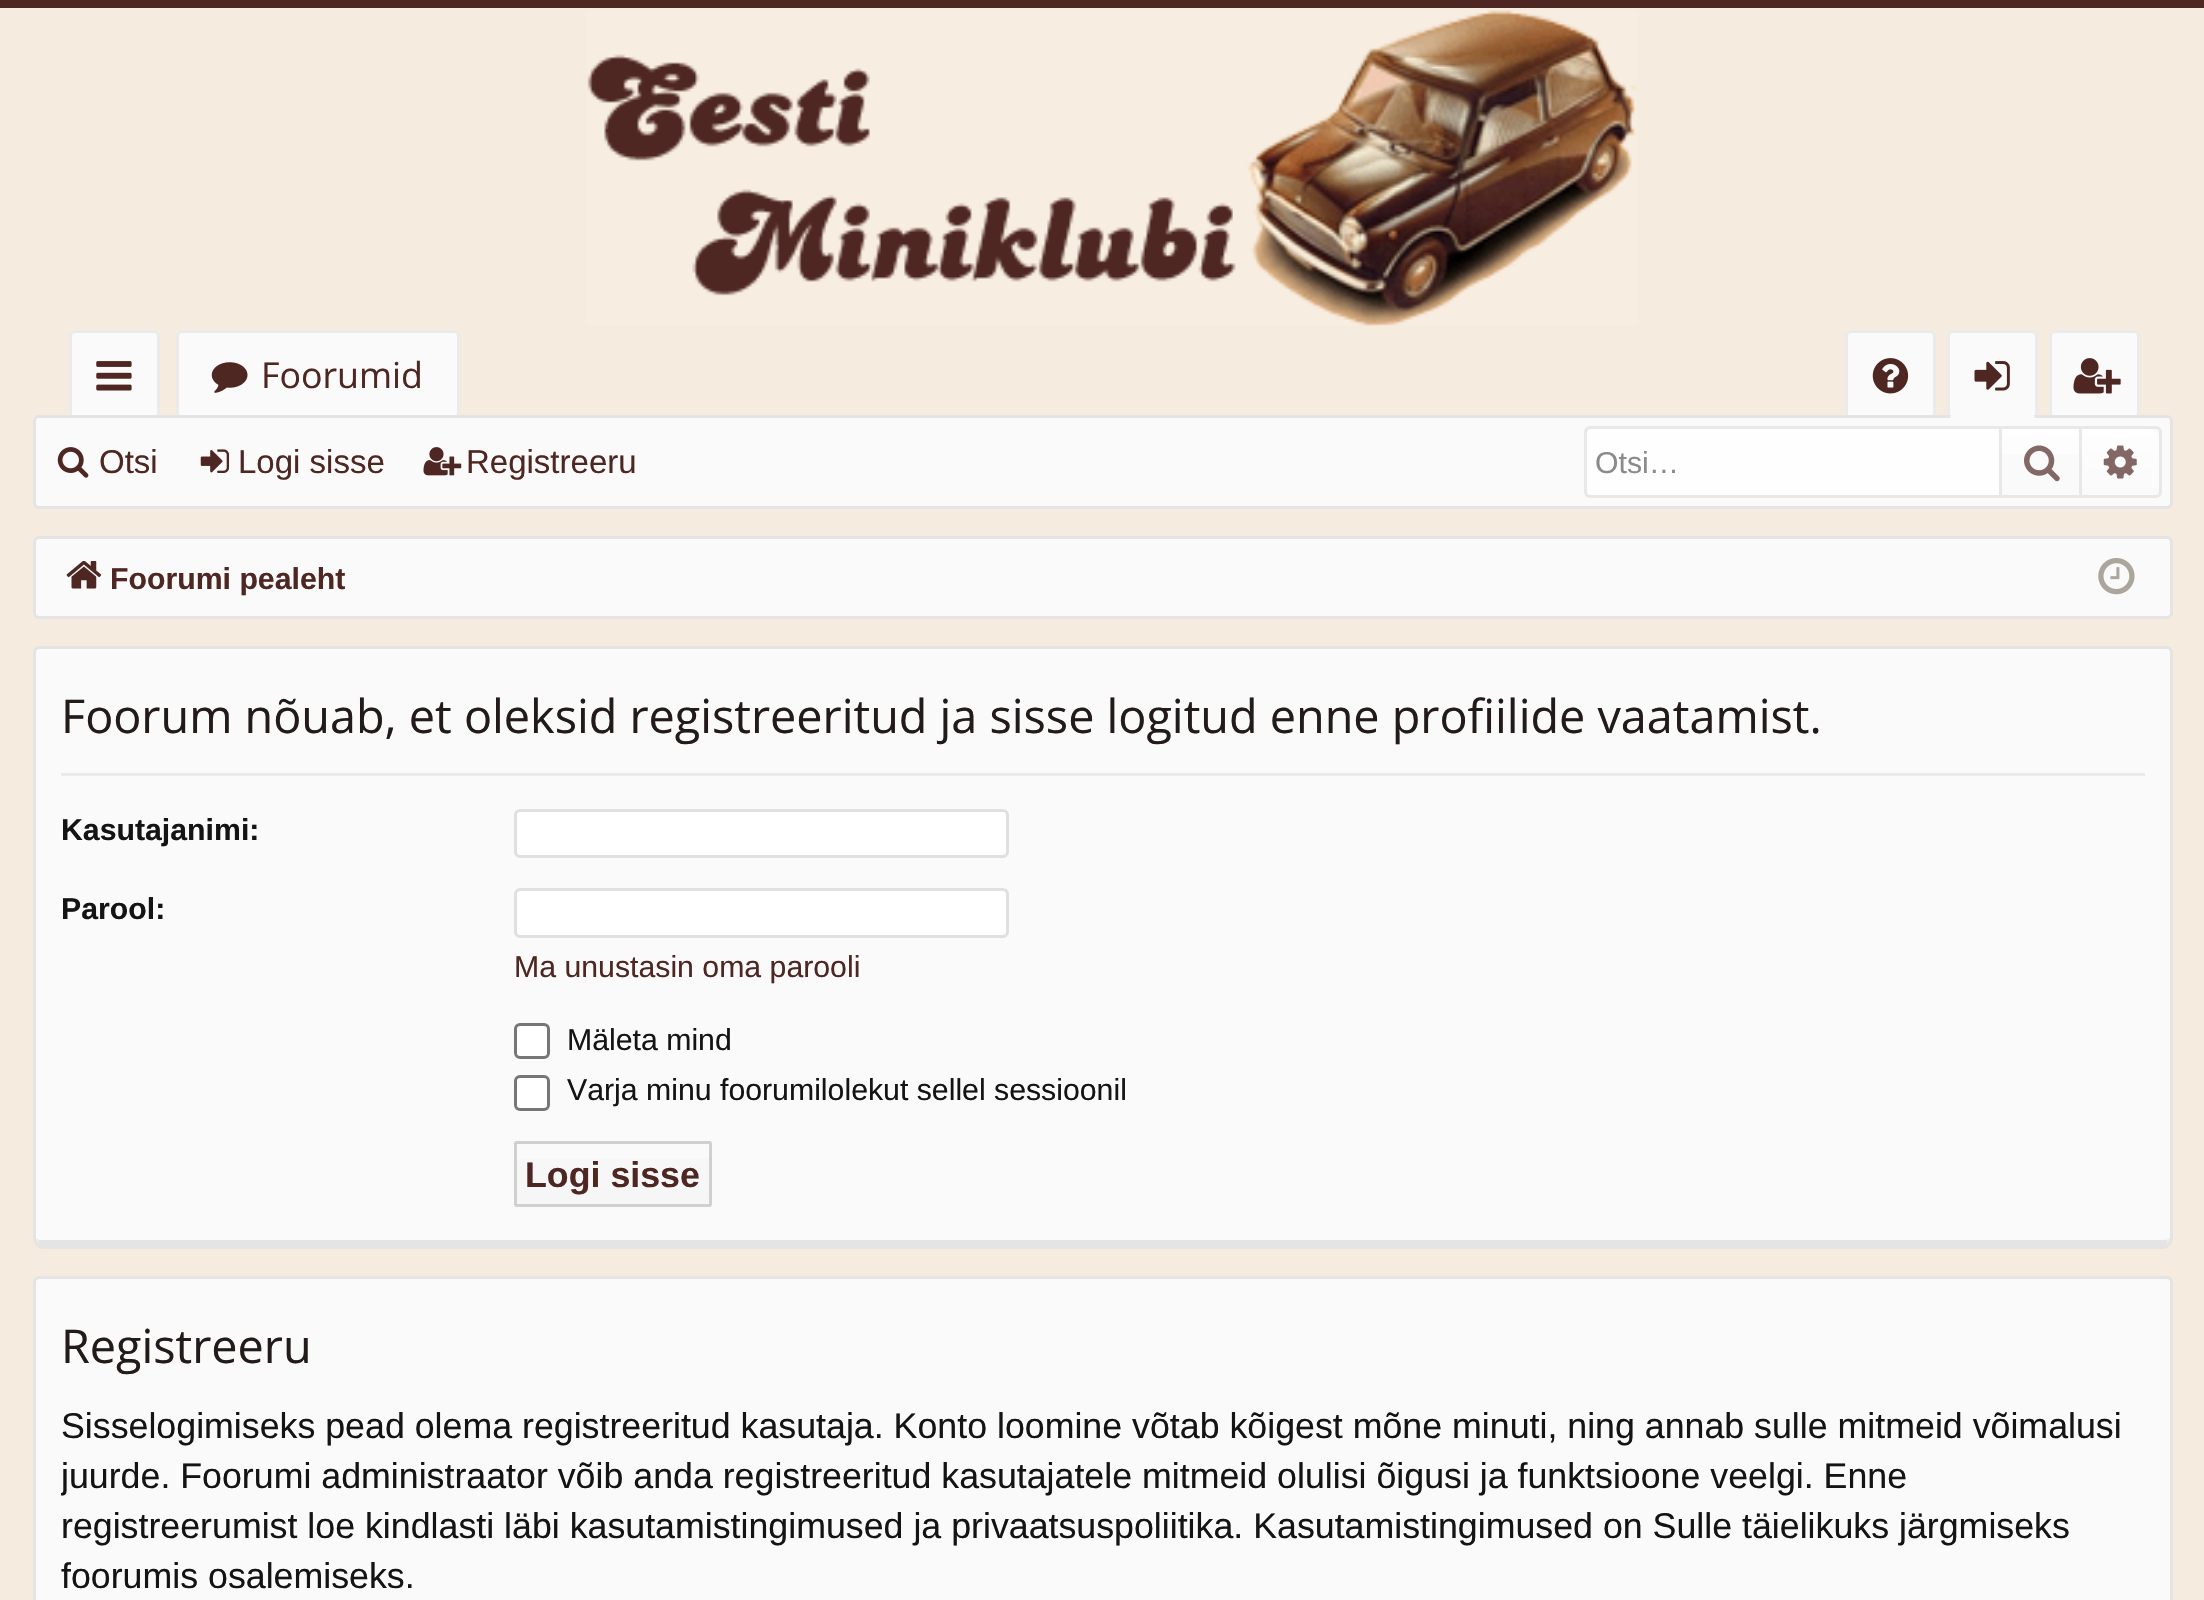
void draw(SkCanvas* c) {
SkPaint p;
p.setAntiAlias(true);
auto F=[&](const char* family, int weight, float size, bool italic = false){SkFontStyle style(weight, SkFontStyle::kNormal_Width,italic ? SkFontStyle::kItalic_Slant : SkFontStyle::kUpright_Slant);SkFont result(fontMgr->matchFamilyStyle(family, style), size);result.setSubpixel(true);return result;};
auto T=[&](const char* s, float x, float y, const SkFont& font){c->drawString(s, x, y, font, p);};
auto R=[&](float x, float y, float w, float h){c->drawRect(SkRect::MakeXYWH(x, y, w, h), p);};
auto I=[&](const char* path, float x, float y, float w, float h){auto image = SkImages::DeferredFromEncodedData(SkData::MakeFromFileName(path));c->drawImageRect(image, SkRect::MakeXYWH(x, y, w, h), SkSamplingOptions());};
auto P=[&](const char* data, bool evenOdd = false){SkPath result = *SkParsePath::FromSVGString(data);if (evenOdd) result.setFillType(SkPathFillType::kEvenOdd);return result;};
c->clear(0xfff5ebdf);
p.setColor(0xff4e2722);
R(0,0,2204,8);
I("1.png",587,10,1050,316);
p.setColor(0xfffafafa);
c->drawPath(P("M75 333h79c1.5 0 3 1.5 3 3v82h-85v-82c0-1.5 1.5-3 3-3z"),p);
p.setColor(0xffebebeb);
R(72,330,85,3);
R(157,333,3,85);
R(69,333,3,85);
I("2.png",96,361,36,30);
p.setColor(0xfffafafa);
c->drawPath(P("M182 333h272c1.5 0 3 1.5 3 3v82h-278v-82c0-1.5 1.5-3 3-3z"),p);
p.setColor(0xffebebeb);
R(179,330,278,3);
R(457,333,3,85);
R(176,333,3,85);
I("3.png",211,362,37,31);
auto f1 = F("Open Sans",400,35.75);
p.setColor(0xff4e2722);
T("Foorumid",261,388,f1);
p.setColor(0xfffafafa);
c->drawPath(P("M1851 333h79c1.5 0 3 1.5 3 3v82h-85v-82c0-1.5 1.5-3 3-3z"),p);
p.setColor(0xffebebeb);
R(1848,330,85,3);
R(1933,333,3,85);
R(1845,333,3,85);
I("4.png",1872,358,37,36);
p.setColor(0xfffafafa);
c->drawPath(P("M1953 333h79c1.5 0 3 1.5 3 3v82h-85v-82c0-1.5 1.5-3 3-3z"),p);
p.setColor(0xffebebeb);
R(1950,330,85,3);
R(2035,333,3,85);
R(1947,333,3,85);
I("5.png",1974,361,36,30);
p.setColor(0xfffafafa);
c->drawPath(P("M2055 333h79c1.5 0 3 1.5 3 3v82h-85v-82c0-1.5 1.5-3 3-3z"),p);
p.setColor(0xffebebeb);
R(2137,333,3,85);
R(2049,333,3,85);
p.setColor(0xfffafafa);
c->drawRoundRect(SkRect::MakeXYWH(34.5,416.5,2137,91),4.5,4.5,p);
p.setStroke(true);
p.setStrokeWidth(3);
p.setColor(0xffe4e4e4);
c->drawRoundRect(SkRect::MakeXYWH(34.5,416.5,2137,91),4.5,4.5,p);
p.setStroke(false);
p.setColor(0xfffafafa);
c->drawPath(P("M1955.5 413h74c3 0 5.5 2.5 5.5 5.5v5.5h-85v-5.5c0-3 2.5-5.5 5.5-5.5z"),p);
p.setColor(0xffebebeb);
R(2052,330,85,3);
I("6.png",2073,358,48,36);
I("7.png",57,447,32,31);
auto f2 = F("Liberation Sans",400,33);
p.setColor(0xff4e2722);
T("Otsi",99,473,f2);
I("8.png",200,449,30,24);
T("Logi sisse",238,473,f2);
I("9.png",423,447,39,29);
T("Registreeru",466,473,f2);
p.setStroke(true);
p.setColor(0xffe8e8e8);
c->drawRoundRect(SkRect::MakeXYWH(1585.5,427.5,575,69),4.5,4.5,p);
p.setStroke(false);
p.setColor(0xfffefefe);
c->drawPath(P("M1593 429h406v66h-406c-3.5 0-6-2.5-6-6v-54c0-3.5 2.5-6 6-6z"),p);
auto f3 = F("Liberation Sans",400,30.25);
p.setColor(0xff8b8b8b);
T("Otsi…",1595,473,f3);
{
const SkColor colors[] = {0xfffefefe,0xfffafafa};
const float stops[] = {0,1};
const SkPoint ends[] = {{2041,429}, {2041,495}};
p.setShader(SkGradientShader::MakeLinear(ends, colors, stops, 2, SkTileMode::kClamp));
p.setAlpha(255);
}
R(2002,429,77,25);
p.setShader(nullptr);
p.setColor(0xffe8e8e8);
R(2079,429,3,66);
R(1999,429,3,66);
I("10.png",2024,445,36,37);
{
const SkColor colors[] = {0xfffefefe,0xfffafafa};
const float stops[] = {0,1};
const SkPoint ends[] = {{2120,429}, {2120,495}};
p.setShader(SkGradientShader::MakeLinear(ends, colors, stops, 2, SkTileMode::kClamp));
p.setAlpha(255);
}
c->drawPath(P("M2082 429h66c6 0 11 5 11 11v44c0 6-5 11-11 11h-66z"),p);
I("11.png",2103,445,34,34);
p.setShader(nullptr);
p.setColor(0xfffafafa);
c->drawRoundRect(SkRect::MakeXYWH(34.5,537.5,2137,80),4.5,4.5,p);
p.setStroke(true);
p.setColor(0xffe4e4e4);
c->drawRoundRect(SkRect::MakeXYWH(34.5,537.5,2137,80),4.5,4.5,p);
I("12.png",66,561,36,28);
auto f4 = F("Liberation Sans",700,30.25);
p.setStroke(false);
p.setColor(0xff4e2722);
T("Foorumi pealeht",110,589,f4);
I("13.png",2098,558,37,37);
p.setColor(0xfffafafa);
c->drawPath(P("M38 649h2129c2 0 3 1 3 3v586c0 1-4 2-8 2h-2118c-5 0-8-1-8-2v-586c0-2 1-3 2-3z"),p);
p.setStroke(true);
p.setColor(0xffe4e4e4);
c->drawPath(P("M39 647.5h2128c2.5 0 4.5 2 4.5 4.5v586c0 5-4.5 9.5-9.5 9.5h-2118c-5 0-9.5-4.5-9.5-9.5v-586c0-2.5 2-4.5 4.5-4.5z"),p);
p.setStroke(false);
R(39,1240,2128,6);
p.setColor(0xffebebeb);
R(61,773,2084,3);
auto f5 = F("Open Sans",400,46.75);
p.setColor(0xff231b1a);
T("Foorum nõuab, et oleksid registreeritud ja sisse logitud enne profiilide vaatamist.",61,733,f5);
p.setColor(0xff141414);
T("Kasutajanimi:",61,840,f4);
p.setColor(0xffffffff);
c->drawRoundRect(SkRect::MakeXYWH(515.5,810.5,492,46),4.5,4.5,p);
p.setStroke(true);
p.setColor(0xffe0e0e0);
c->drawRoundRect(SkRect::MakeXYWH(515.5,810.5,492,46),4.5,4.5,p);
p.setStroke(false);
p.setColor(0xff141414);
T("Parool:",61,919,f4);
p.setColor(0xffffffff);
c->drawRoundRect(SkRect::MakeXYWH(515.5,889.5,492,47),4.5,4.5,p);
p.setStroke(true);
p.setColor(0xffe0e0e0);
c->drawRoundRect(SkRect::MakeXYWH(515.5,889.5,492,47),4.5,4.5,p);
p.setStroke(false);
p.setColor(0xff4e2722);
T("Ma unustasin oma parooli",514,977,f3);
p.setColor(0xffffffff);
c->drawRoundRect(SkRect::MakeXYWH(515.5,1024.5,33,33),4.5,4.5,p);
p.setStroke(true);
p.setColor(0xff767676);
c->drawRoundRect(SkRect::MakeXYWH(515.5,1024.5,33,33),4.5,4.5,p);
p.setStroke(false);
p.setColor(0xff141414);
T("Mäleta mind",567,1050,f3);
p.setColor(0xffffffff);
c->drawRoundRect(SkRect::MakeXYWH(515.5,1076.5,33,33),4.5,4.5,p);
p.setStroke(true);
p.setColor(0xff767676);
c->drawRoundRect(SkRect::MakeXYWH(515.5,1076.5,33,33),4.5,4.5,p);
p.setStroke(false);
p.setColor(0xff141414);
T("Varja minu foorumilolekut sellel sessioonil",567,1100,f3);
{
const SkColor colors[] = {0xfff8f8f8,0xfff6f6f6};
const float stops[] = {0,1};
const SkPoint ends[] = {{613,1144}, {613,1205}};
p.setShader(SkGradientShader::MakeLinear(ends, colors, stops, 2, SkTileMode::kClamp));
p.setAlpha(255);
}
R(514,1159,198,46);
p.setStroke(true);
p.setShader(nullptr);
p.setColor(0xffd0d0d0);
c->drawRoundRect(SkRect::MakeXYWH(515.5,1142.5,195,63),1.5,1.5,p);
auto f6 = F("Liberation Sans",700,35.75);
p.setStroke(false);
p.setColor(0xff4e2722);
T("Logi sisse",525,1187,f6);
p.setColor(0xfffafafa);
c->drawPath(P("M38 1279h2129c2 0 3 1 3 3v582c0 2-4 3-8 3h-2118c-5 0-8-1-8-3v-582c0-2 1-3 2-3z"),p);
p.setStroke(true);
p.setColor(0xffe4e4e4);
c->drawPath(P("M39 1277.5h2128c2.5 0 4.5 2 4.5 4.5v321c0 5-4.5 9.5-9.5 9.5h-2118c-5 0-9.5-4.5-9.5-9.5v-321c0-2.5 2-4.5 4.5-4.5z"),p);
p.setStroke(false);
p.setColor(0xff231b1a);
T("Registreeru",61,1363,f5);
auto f7 = F("Liberation Sans",400,35.75);
p.setColor(0xff141414);
T("Sisselogimiseks pead olema registreeritud kasutaja. Konto loomine võtab kõigest mõne minuti, ning annab sulle mitmeid võimalusi",61,1438,f7);
c->save();
c->clipRect(SkRect::MakeXYWH(61,1290,2084,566));
T("juurde. Foorumi administraator võib anda registreeritud kasutajatele mitmeid olulisi õigusi ja funktsioone veelgi. Enne",61,1488,f7);
c->restore();
T("registreerumist loe kindlasti läbi kasutamistingimused ja privaatsuspoliitika. Kasutamistingimused on Sulle täielikuks järgmiseks",61,1538,f7);
T("foorumis osalemiseks.",61,1588,f7);
}
